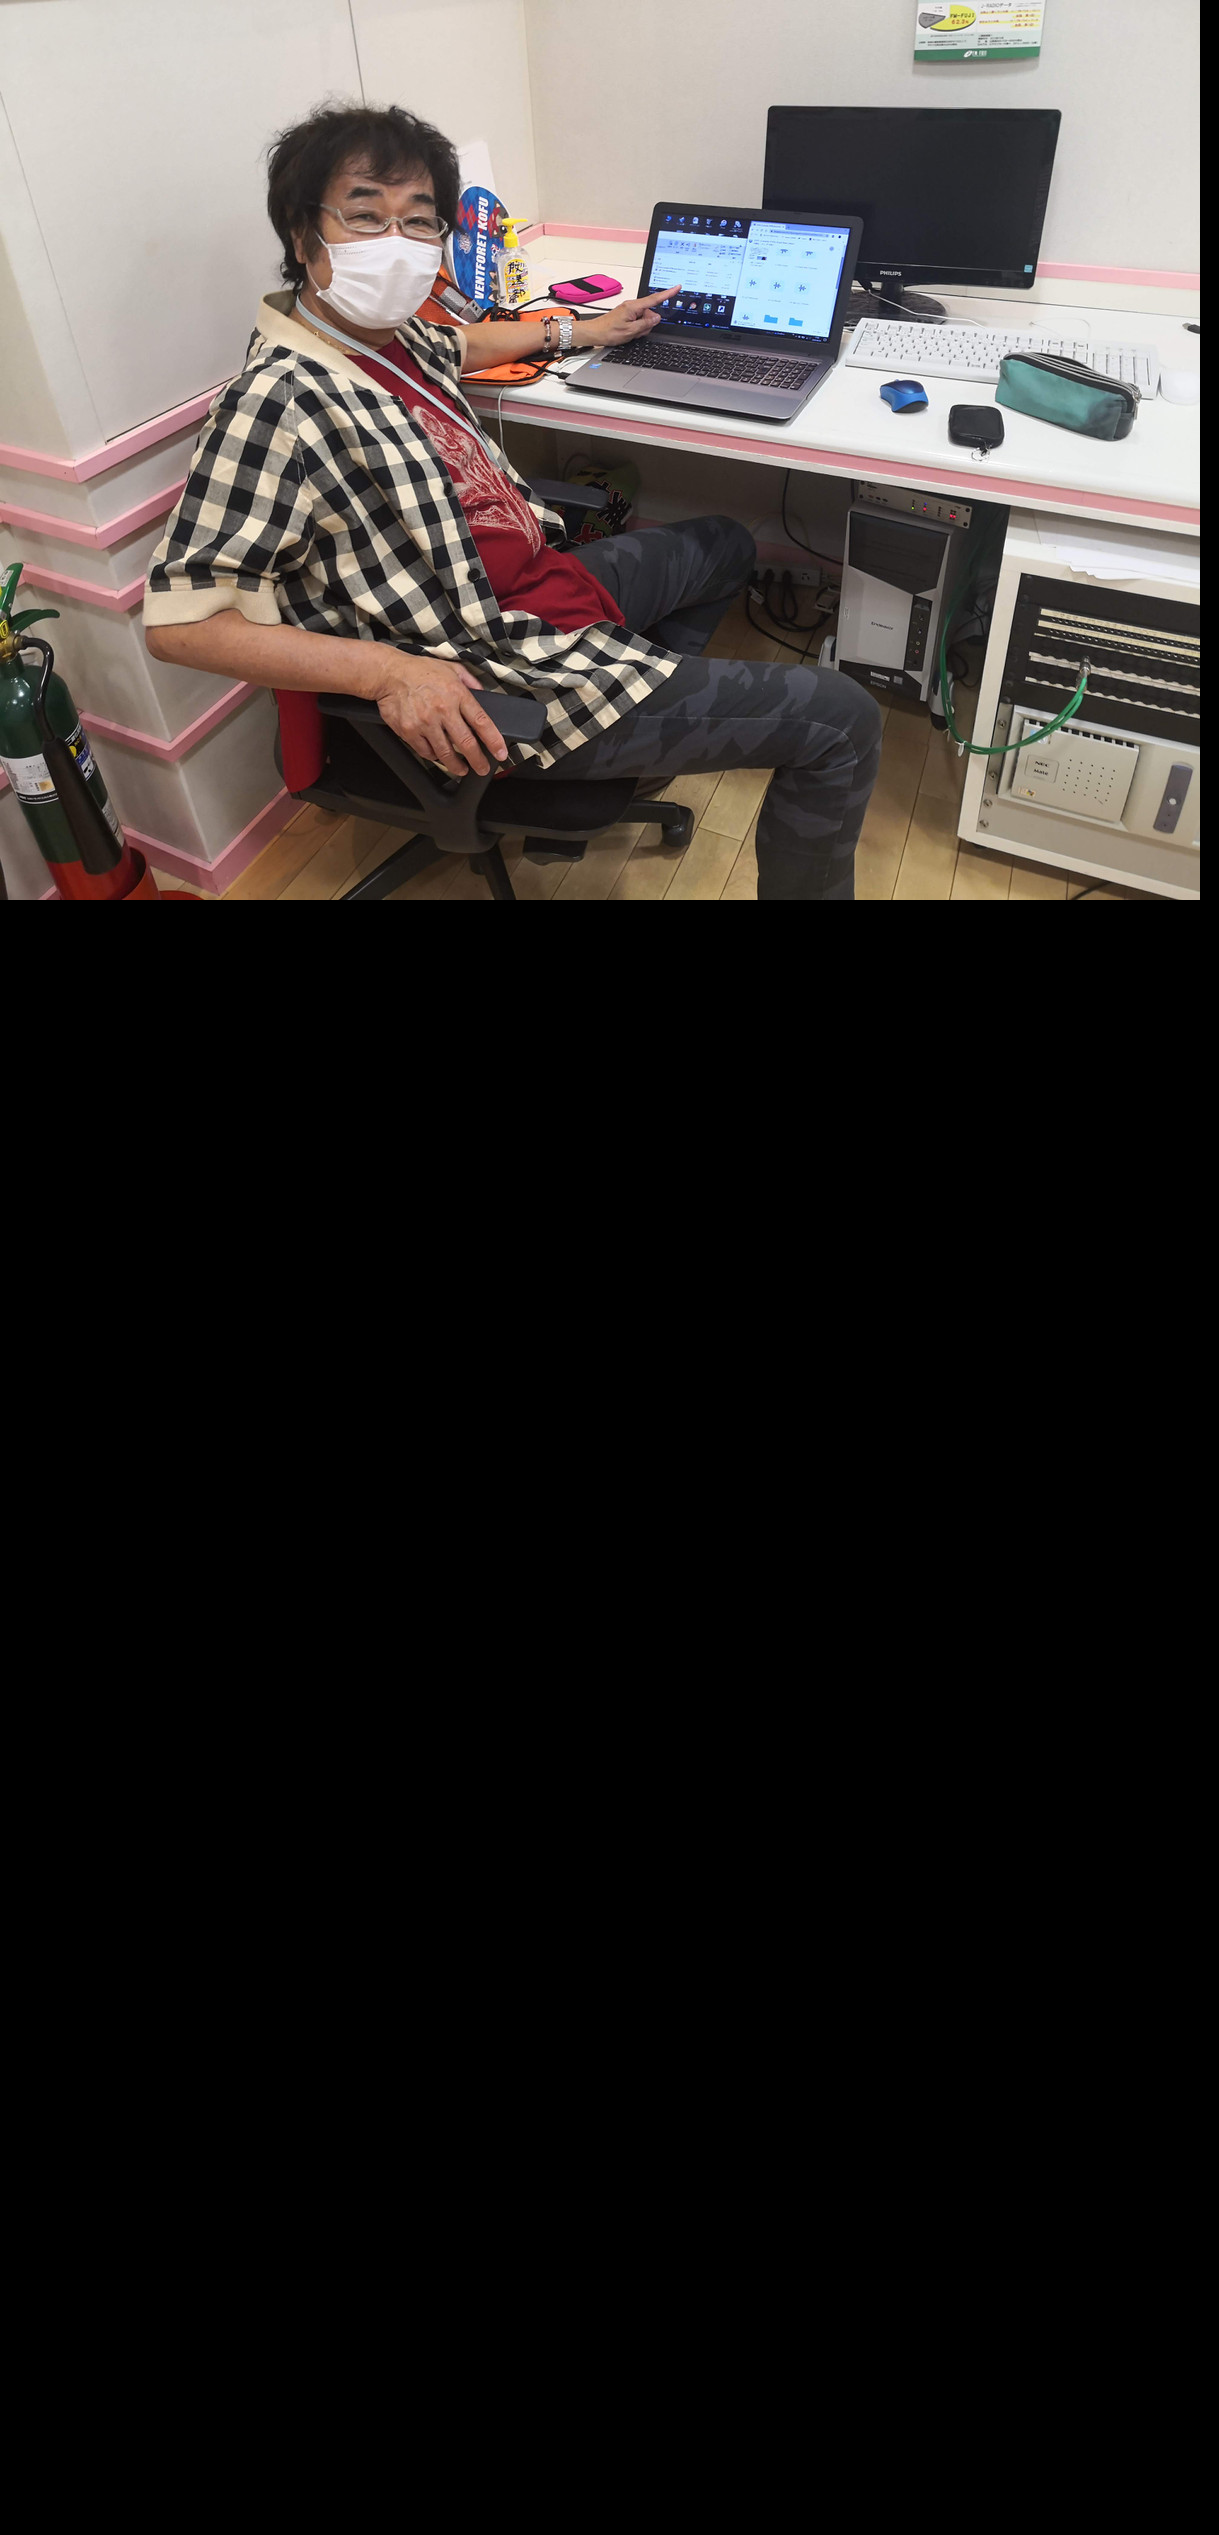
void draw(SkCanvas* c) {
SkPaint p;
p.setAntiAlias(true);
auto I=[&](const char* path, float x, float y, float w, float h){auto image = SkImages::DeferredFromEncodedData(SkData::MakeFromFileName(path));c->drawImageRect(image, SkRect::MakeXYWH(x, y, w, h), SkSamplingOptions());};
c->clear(0xff000000);
I("1.png",0,0,1200,900);
}
